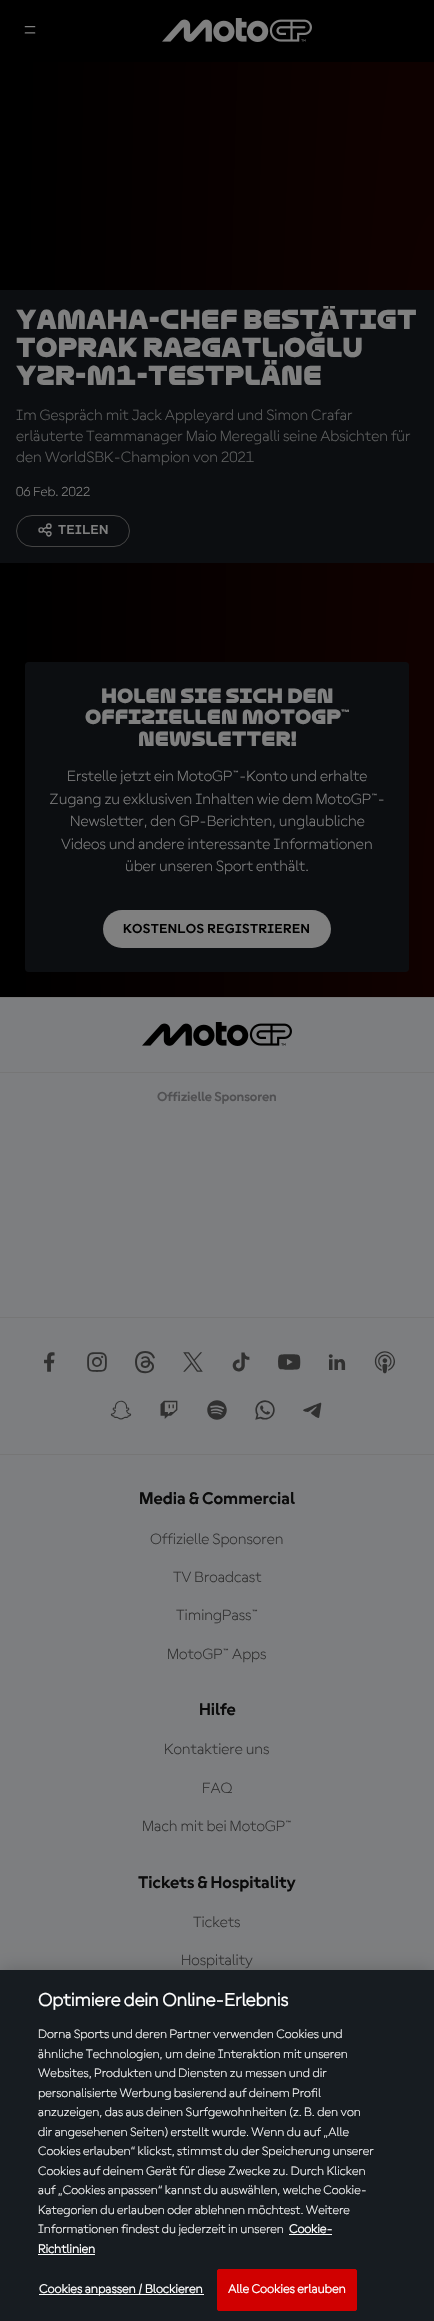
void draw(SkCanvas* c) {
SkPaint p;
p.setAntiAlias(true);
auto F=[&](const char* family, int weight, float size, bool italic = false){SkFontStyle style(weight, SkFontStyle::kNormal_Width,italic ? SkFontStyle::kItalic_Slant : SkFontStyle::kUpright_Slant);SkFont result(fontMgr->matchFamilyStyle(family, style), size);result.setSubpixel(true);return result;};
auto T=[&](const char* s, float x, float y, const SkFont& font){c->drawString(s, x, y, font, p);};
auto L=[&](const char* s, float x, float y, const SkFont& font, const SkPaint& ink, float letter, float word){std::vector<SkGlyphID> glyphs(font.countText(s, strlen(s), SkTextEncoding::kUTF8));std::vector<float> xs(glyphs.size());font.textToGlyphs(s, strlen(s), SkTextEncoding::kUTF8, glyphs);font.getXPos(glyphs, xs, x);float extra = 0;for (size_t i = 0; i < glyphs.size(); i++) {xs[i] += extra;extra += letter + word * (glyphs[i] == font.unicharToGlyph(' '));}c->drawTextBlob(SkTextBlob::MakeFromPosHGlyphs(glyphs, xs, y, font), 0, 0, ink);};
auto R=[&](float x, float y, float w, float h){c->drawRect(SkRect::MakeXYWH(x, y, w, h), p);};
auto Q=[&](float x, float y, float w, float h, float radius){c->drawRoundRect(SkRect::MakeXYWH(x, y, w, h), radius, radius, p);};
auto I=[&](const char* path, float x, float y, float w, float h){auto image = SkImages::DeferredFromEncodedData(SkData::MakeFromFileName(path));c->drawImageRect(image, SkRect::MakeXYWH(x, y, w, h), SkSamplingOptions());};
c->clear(0xff7d7e80);
p.setColor(0xff000000);
R(0,0,434,62);
I("1.png",24,26,12,8);
I("2.png",162,18,150,24);
{
const SkColor colors[] = {0xff110100,0xff000000};
const float stops[] = {0,1};
SkMatrix m = SkMatrix::Translate(434,932).preScale(420,4888);
p.setShader(SkGradientShader::MakeRadial({0, 0}, 1, colors, stops, 2, SkTileMode::kClamp, 0, &m));
p.setAlpha(255);
}
R(0,62,434,935);
p.setShader(nullptr);
p.setColor(0xff0c0e11);
R(0,290,434,273);
c->save();
c->clipRect(SkRect::MakeXYWH(16,306,402,84));
auto f1 = F("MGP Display",700,24);
p.setColor(0xff808080);
T("Yamaha-Chef bestätigt",16,329,f1);
c->restore();
T("Toprak Razgatl",16,357,f1);
auto f2 = F("Liberation Sans",700,24);
T("ı",278,357,f2);
T("oğlu",284,357,f1);
T("YZR-M1-Testpläne",16,385,f1);
auto f3 = F("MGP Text",300,16);
p.setColor(0xff5d5e5e);
T("Im Gespräch mit Jack Appleyard und Simon Crafar",16,420,f3);
T("erläuterte Teammanager Maio Meregalli seine Absichten für",16,441,f3);
T("den WorldSBK-Champion von 2021",16,462,f3);
auto f4 = F("MGP Text",300,14);
p.setColor(0xff808080);
T("06 Feb. 2022",16,496,f4);
p.setStroke(true);
p.setStrokeWidth(1);
p.setColor(0xff444444);
c->drawRoundRect(SkRect::MakeXYWH(16.5,515.5,113,31),15.5,15.5,p);
I("3.png",38,523,14,14);
auto f5 = F("MGP Text",700,14);
p.setStroke(false);
p.setColor(0xff808080);
L("TEILEN",58,534,f5,p,.4,0);
p.setColor(0xff0c0e11);
Q(25,662,384,310,4);
auto f6 = F("MGP Display",700,18);
p.setColor(0xff808080);
T("Holen Sie sich den",101,703,f6);
T("offiziellen MotoGP™",85,724,f6);
T("Newsletter!",138,746,f6);
T("Erstelle jetzt ein MotoGP™-Konto und erhalte",67,781,f3);
T("Zugang zu exklusiven Inhalten wie dem MotoGP™-",49,804,f3);
T("Newsletter, den GP-Berichten, unglaubliche",70,826,f3);
T("Videos und andere interessante Informationen",61,849,f3);
T("über unseren Sport enthält.",125,871,f3);
Q(103,910,228,38,19);
p.setColor(0xff000000);
L("KOSTENLOS REGISTRIEREN",123,933,f5,p,.4,0);
p.setColor(0xff767676);
R(0,997,434,1);
I("4.png",142,1022,150,24);
R(0,1072,434,1);
p.setColor(0xff505052);
L("Offizielle Sponsoren",157,1101,f5,p,-.1,0);
p.setColor(0xff767676);
R(0,1317,434,1);
I("5.png",44,1352,11,20);
I("6.png",87,1352,20,20);
I("7.png",135,1351,20,23);
I("8.png",183,1352,20,20);
I("9.png",232,1352,18,20);
I("10.png",278,1354,23,16);
I("11.png",328,1354,18,16);
I("12.png",374,1351,21,23);
I("13.png",110,1400,22,20);
I("14.png",160,1400,18,19);
I("15.png",207,1400,20,20);
I("16.png",255,1400,20,20);
I("17.png",303,1402,19,16);
R(0,1454,434,1);
auto f7 = F("MGP Text",700,18);
p.setColor(0xff0b0b0b);
T("Media & Commercial",139,1504,f7);
p.setColor(0xff303030);
T("Offizielle Sponsoren",150,1544,f3);
T("TV Broadcast",173,1582,f3);
T("TimingPass™",176,1620,f3);
T("MotoGP™ Apps",167,1659,f3);
p.setColor(0xff0b0b0b);
T("Hilfe",199,1715,f7);
p.setColor(0xff303030);
T("Kontaktiere uns",164,1754,f3);
T("FAQ",202,1793,f3);
T("Mach mit bei MotoGP™",142,1831,f3);
p.setColor(0xff0b0b0b);
T("Tickets & Hospitality",138,1888,f7);
p.setColor(0xff303030);
T("Tickets",193,1927,f3);
T("Hospitality",181,1965,f3);
p.setColor(0x33000000);
p.setMaskFilter(SkMaskFilter::MakeBlur(kNormal_SkBlurStyle, 9));
c->drawRect(SkRect::MakeXYWH(0,1970,434,351),p);
p.setMaskFilter(nullptr);
p.setColor(0xff171c21);
R(0,1970,434,351);
auto f8 = F("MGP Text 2",700,19.25);
p.setColor(0xffffffff);
T("Optimiere dein Online-Erlebnis",38,2006,f8);
auto f9 = F("MGP Text",300,13);
T("Dorna Sports und deren Partner verwenden Cookies und",38,2038,f9);
T("ähnliche Technologien, um deine Interaktion mit unseren",38,2058,f9);
T("Websites, Produkten und Diensten zu messen und dir",38,2077,f9);
T("personalisierte Werbung basierend auf deinem Profil",38,2097,f9);
T("anzuzeigen, das aus deinen Surfgewohnheiten (z. B. den von",38,2116,f9);
T("dir angesehenen Seiten) erstellt wurde. Wenn du auf „Alle",38,2136,f9);
T("Cookies erlauben“ klickst, stimmst du der Speicherung unserer",38,2155,f9);
T("Cookies auf deinem Gerät für diese Zwecke zu. Durch Klicken",38,2175,f9);
T("auf „Cookies anpassen“ kannst du auswählen, welche Cookie-",38,2194,f9);
T("Kategorien du erlauben oder ablehnen möchtest. Weitere",38,2214,f9);
T("Informationen findest du jederzeit in unseren",38,2233,f9);
auto f10 = F("MGP Text 2",700,13);
T("Cookie-",289,2233,f10);
R(289,2234,43,1);
T("Richtlinien",38,2253,f10);
R(38,2254,57,1);
R(39,2294,165,1);
L("Cookies anpassen / Blockieren",39,2293,f10,p,.1,0);
p.setColor(0xffd00000);
c->drawRoundRect(SkRect::MakeXYWH(217.5,2269.5,139,41),1.5,1.5,p);
p.setStroke(true);
c->drawRoundRect(SkRect::MakeXYWH(217.5,2269.5,139,41),1.5,1.5,p);
p.setStroke(false);
p.setColor(0xffffffff);
L("Alle Cookies erlauben",228,2293,f10,p,.1,0);
}
